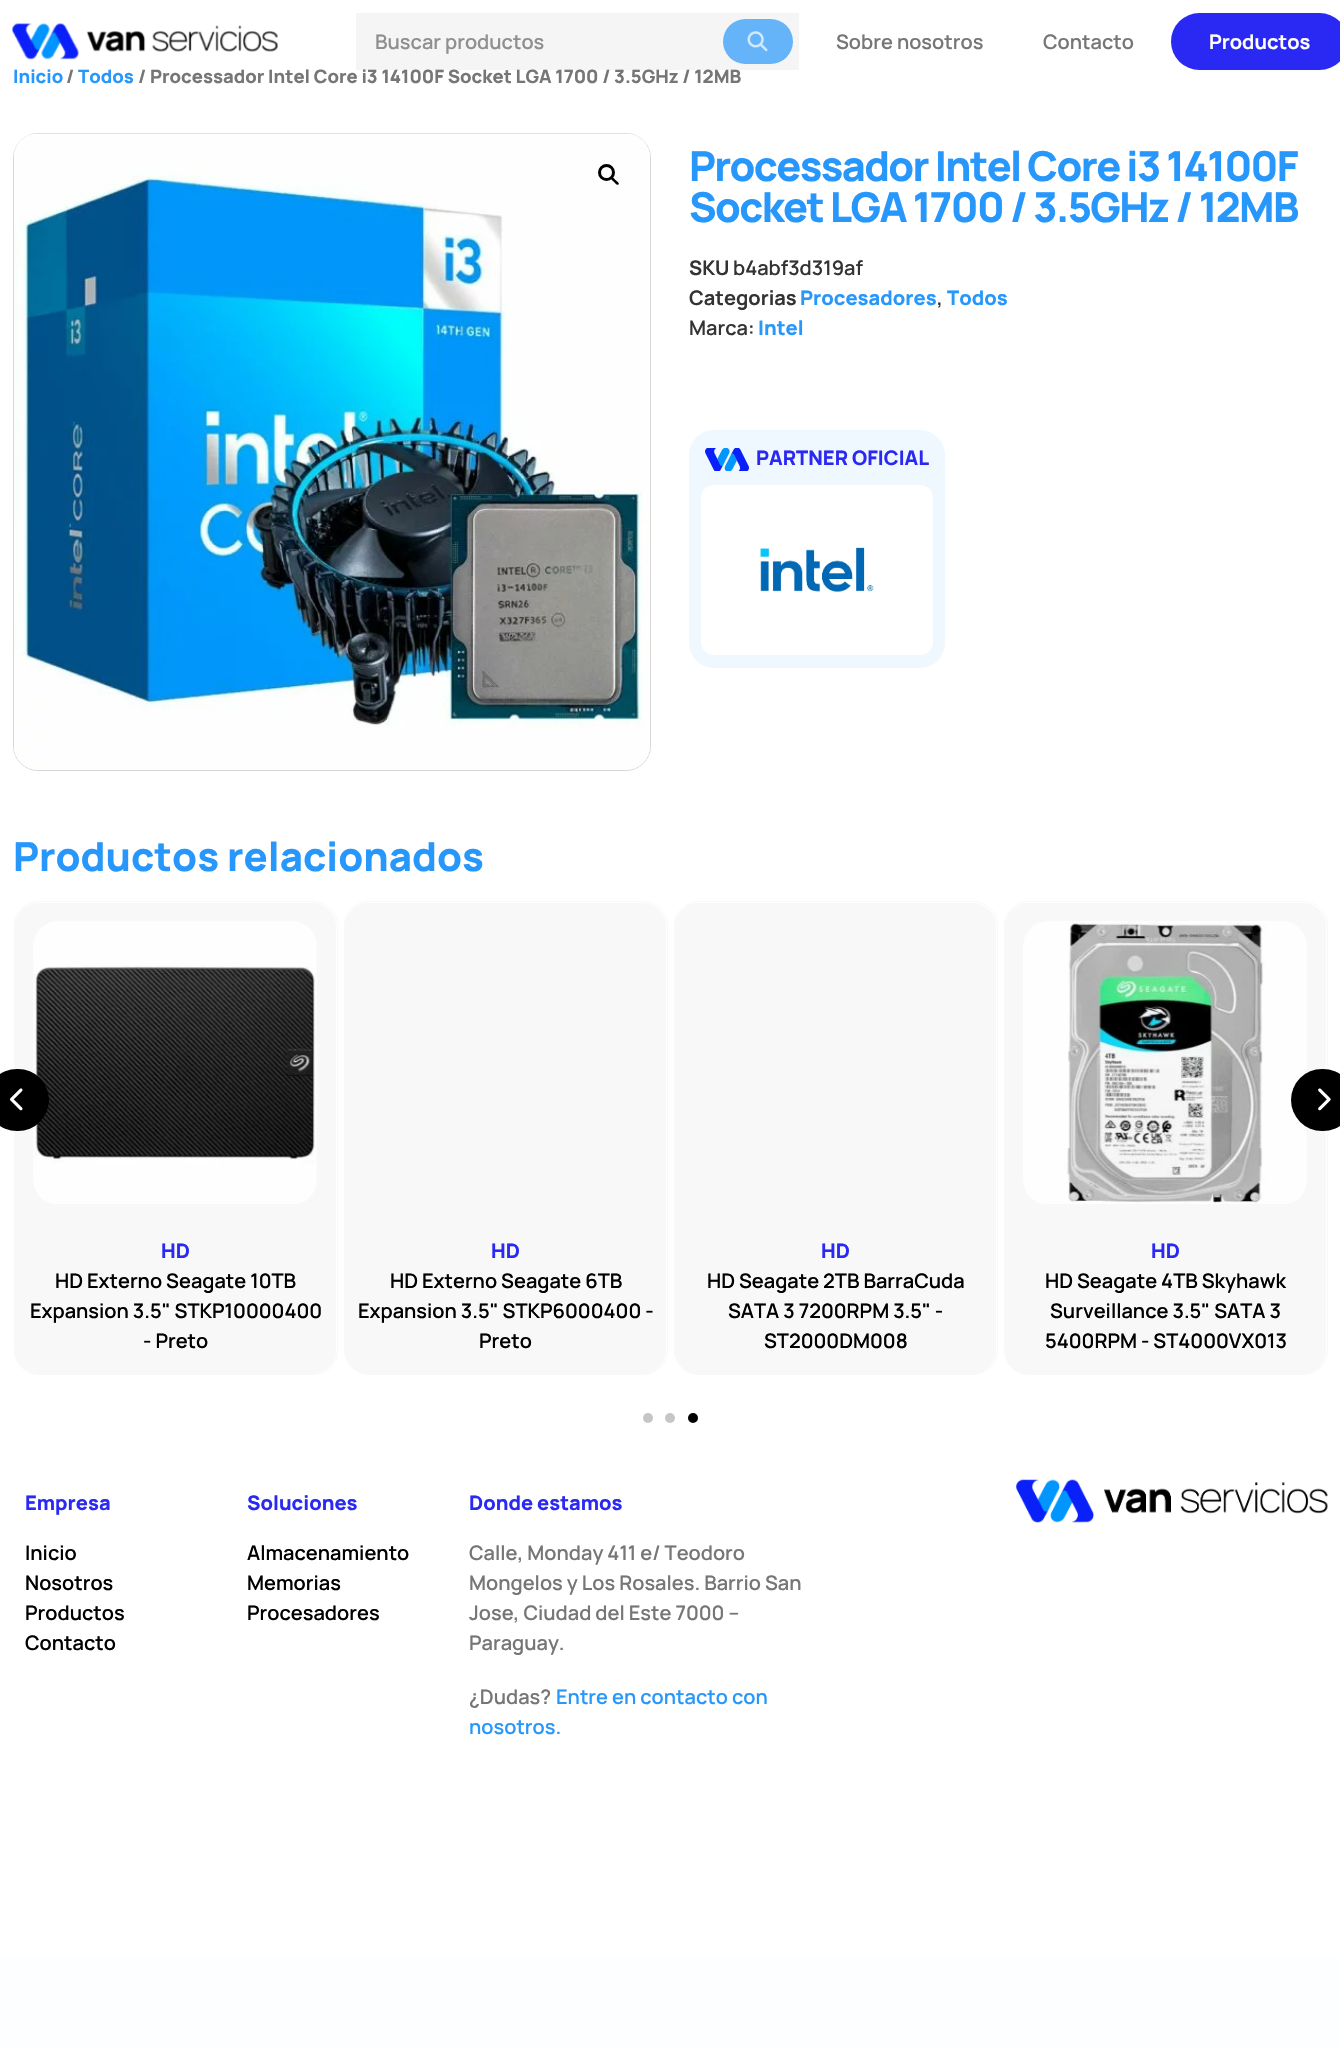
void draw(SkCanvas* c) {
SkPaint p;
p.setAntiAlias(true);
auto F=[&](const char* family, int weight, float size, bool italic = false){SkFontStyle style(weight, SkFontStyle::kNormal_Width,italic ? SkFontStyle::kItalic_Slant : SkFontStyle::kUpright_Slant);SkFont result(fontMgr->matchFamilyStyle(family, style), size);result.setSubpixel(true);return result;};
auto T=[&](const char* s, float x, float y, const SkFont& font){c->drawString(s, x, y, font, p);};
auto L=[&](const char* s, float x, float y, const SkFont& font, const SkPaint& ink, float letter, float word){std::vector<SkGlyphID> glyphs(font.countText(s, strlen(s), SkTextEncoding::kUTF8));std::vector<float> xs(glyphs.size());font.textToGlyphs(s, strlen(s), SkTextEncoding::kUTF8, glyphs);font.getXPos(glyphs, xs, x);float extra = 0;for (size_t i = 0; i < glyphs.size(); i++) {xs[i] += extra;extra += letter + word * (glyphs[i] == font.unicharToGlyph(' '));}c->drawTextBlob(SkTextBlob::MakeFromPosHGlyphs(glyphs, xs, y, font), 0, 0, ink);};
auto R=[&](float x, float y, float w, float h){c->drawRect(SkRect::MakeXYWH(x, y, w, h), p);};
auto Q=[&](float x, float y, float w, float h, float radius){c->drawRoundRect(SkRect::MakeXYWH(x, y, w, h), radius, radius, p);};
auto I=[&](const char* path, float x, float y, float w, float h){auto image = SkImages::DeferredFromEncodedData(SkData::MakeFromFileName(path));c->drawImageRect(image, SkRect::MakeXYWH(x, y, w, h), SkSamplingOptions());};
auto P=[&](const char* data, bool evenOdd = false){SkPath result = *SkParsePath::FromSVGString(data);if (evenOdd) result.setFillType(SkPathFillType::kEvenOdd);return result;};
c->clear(0xffffffff);
I("1.png",12,23,266,37);
p.setColor(0x0a000000);
R(356,13,443,57);
auto f1 = F("Manrope",600,20);
p.setColor(0xff8f8f8f);
T("Buscar productos",375,49,f1);
p.setColor(0xff65b3f9);
Q(723,19,70,45,22.5);
I("2.png",747,31,21,21);
p.setColor(0xff767676);
T("Sobre nosotros",836,49,f1);
T("Contacto",1043,49,f1);
p.setColor(0xff2a29f4);
Q(1171,13,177,57,28.5);
auto f2 = F("Manrope",700,20);
p.setColor(0xffffffff);
T("Productos",1209,49,f2);
auto f3 = F("Manrope",800,18.4);
p.setColor(0xff2797fb);
T("Inicio",13,83,f3);
p.setColor(0xff767676);
T("/",66,83,f3);
p.setColor(0xff2797fb);
T("Todos",78,83,f3);
p.setColor(0xff767676);
T("/ Processador Intel Core i3 14100F Socket LGA 1700 / 3.5GHz / 12MB",138,83,f3);
p.setStroke(true);
p.setStrokeWidth(1);
p.setColor(0xffd8d8d8);
c->drawRoundRect(SkRect::MakeXYWH(13.5,133.5,637,637),24.5,24.5,p);
I("3.png",14,133,636,637);
p.setStrokeWidth(3);
p.setColor(0xff000000);
c->drawCircle(606.5,172.5,7,p);
p.setStroke(false);
c->drawPath(P("M611.5 177.5c1-1.5 3.5 2 4 2.5c1 1 4.5 3 3 4.5c-1.5 1.5-4-2-4.5-2.5c-1-1-4-3-2.5-4.5z"),p);
auto f4 = F("Manrope",800,41.25);
p.setColor(0xff2797fb);
L("Processador Intel Core i3 14100F",689,181,f4,p,-1.6,0);
L("Socket LGA 1700 / 3.5GHz / 12MB",689,222,f4,p,-1.6,0);
p.setColor(0xff333333);
T("SKU",689,275,f2);
T("b4abf3d319af",733,275,f1);
T("Categorias",689,305,f2);
auto f5 = F("Manrope",800,20);
p.setColor(0xff2797fb);
T("Procesadores",800,305,f5);
p.setColor(0xff333333);
T(",",937,305,f1);
p.setColor(0xff2797fb);
T("Todos",947,305,f5);
p.setColor(0xff333333);
T("Marca:",689,335,f1);
p.setColor(0xff2797fb);
T("Intel",758,335,f5);
p.setColor(0xfff0f8ff);
Q(689,430,256,238,25);
I("4.png",705,448,44,23);
p.setColor(0xff2a29f4);
T("PARTNER OFICIAL",756,465,f5);
p.setColor(0xffffffff);
Q(701,485,232,170,13);
I("5.png",760,547,114,45);
auto f6 = F("Manrope",800,40);
p.setColor(0xff2797fb);
T("Productos relacionados",13,871,f6);
p.setStroke(true);
p.setStrokeWidth(1);
p.setColor(0xfff8f8f8);
c->drawRoundRect(SkRect::MakeXYWH(14.5,901.5,323,473),24.5,24.5,p);
p.setStroke(false);
c->drawPath(P("M39 903h273c13.5 0 24 10.5 24 24v297h-321v-297c0-13.5 10.5-24 24-24z"),p);
I("8.png",33,921,284,283);
p.setColor(0xff000000);
Q(-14,1069,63,62,31);
I("6.png",10,1088,13,23);
p.setStroke(true);
p.setColor(0xfff8f8f8);
c->drawRoundRect(SkRect::MakeXYWH(1004.5,901.5,323,473),24.5,24.5,p);
p.setStroke(false);
c->drawPath(P("M1029 903h273c13.5 0 24 10.5 24 24v297h-321v-297c0-13.5 10.5-24 24-24z"),p);
I("9.png",1023,921,284,283);
p.setColor(0xff000000);
Q(1291,1069,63,62,31);
I("7.png",1318,1088,13,23);
p.setColor(0xfff8f8f8);
c->drawPath(P("M15 1224h321v126c0 13.5-10.5 24-24 24h-273c-13.5 0-24-10.5-24-24z"),p);
p.setColor(0xff2a29f4);
T("HD",161,1258,f5);
p.setColor(0xff000000);
T("HD Externo Seagate 10TB",55,1288,f1);
T("Expansion 3.5\" STKP10000400",30,1318,f1);
T("- Preto",143,1348,f1);
p.setStroke(true);
p.setColor(0xfff8f8f8);
c->drawRoundRect(SkRect::MakeXYWH(344.5,901.5,323,473),24.5,24.5,p);
p.setStroke(false);
c->drawPath(P("M369 903h273c13.5 0 24 10.5 24 24v297h-321v-297c0-13.5 10.5-24 24-24z"),p);
c->drawPath(P("M345 1224h321v126c0 13.5-10.5 24-24 24h-273c-13.5 0-24-10.5-24-24z"),p);
p.setColor(0xff2a29f4);
T("HD",491,1258,f5);
p.setColor(0xff000000);
T("HD Externo Seagate 6TB",390,1288,f1);
T("Expansion 3.5\" STKP6000400 -",358,1318,f1);
T("Preto",479,1348,f1);
p.setStroke(true);
p.setColor(0xfff8f8f8);
c->drawRoundRect(SkRect::MakeXYWH(674.5,901.5,323,473),24.5,24.5,p);
p.setStroke(false);
c->drawPath(P("M699 903h273c13.5 0 24 10.5 24 24v297h-321v-297c0-13.5 10.5-24 24-24z"),p);
c->drawPath(P("M675 1224h321v126c0 13.5-10.5 24-24 24h-273c-13.5 0-24-10.5-24-24z"),p);
p.setColor(0xff2a29f4);
T("HD",821,1258,f5);
p.setColor(0xff000000);
T("HD Seagate 2TB BarraCuda",707,1288,f1);
T("SATA 3 7200RPM 3.5\" -",728,1318,f1);
T("ST2000DM008",764,1348,f1);
p.setColor(0xfff8f8f8);
c->drawPath(P("M1005 1224h321v126c0 13.5-10.5 24-24 24h-273c-13.5 0-24-10.5-24-24z"),p);
p.setColor(0xff2a29f4);
T("HD",1151,1258,f5);
p.setColor(0xff000000);
T("HD Seagate 4TB Skyhawk",1045,1288,f1);
T("Surveillance 3.5\" SATA 3",1050,1318,f1);
T("5400RPM - ST4000VX013",1045,1348,f1);
p.setColor(0xffc6c6c6);
c->drawCircle(648,1418,5,p);
c->drawCircle(670,1418,5,p);
p.setColor(0xff000000);
c->drawCircle(693,1418,5,p);
{
const SkColor colors[] = {0xffffffff,0xfffcfeff};
const float stops[] = {0,1};
const SkPoint ends[] = {{670,1443}, {670,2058}};
p.setShader(SkGradientShader::MakeLinear(ends, colors, stops, 2, SkTileMode::kClamp));
p.setAlpha(255);
}
R(0,1956,1340,93);
p.setShader(nullptr);
p.setColor(0xff2a29f4);
T("Empresa",25,1510,f5);
p.setColor(0xff000000);
T("Inicio",25,1560,f1);
T("Nosotros",25,1590,f1);
T("Productos",25,1620,f1);
T("Contacto",25,1650,f1);
p.setColor(0xff2a29f4);
T("Soluciones",247,1510,f5);
p.setColor(0xff000000);
T("Almacenamiento",247,1560,f1);
T("Memorias",247,1590,f1);
T("Procesadores",247,1620,f1);
p.setColor(0xff2a29f4);
T("Donde estamos",469,1510,f5);
p.setColor(0xff767676);
T("Calle, Monday 411 e/ Teodoro",469,1560,f1);
T("Mongelos y Los Rosales. Barrio San",469,1590,f1);
T("Jose, Ciudad del Este 7000 –",469,1620,f1);
T("Paraguay.",469,1650,f1);
T("¿Dudas?",469,1704,f1);
p.setColor(0xff2797fb);
T("Entre en contacto con",556,1704,f1);
T("nosotros.",469,1734,f1);
I("10.png",1016,1479,312,44);
}
